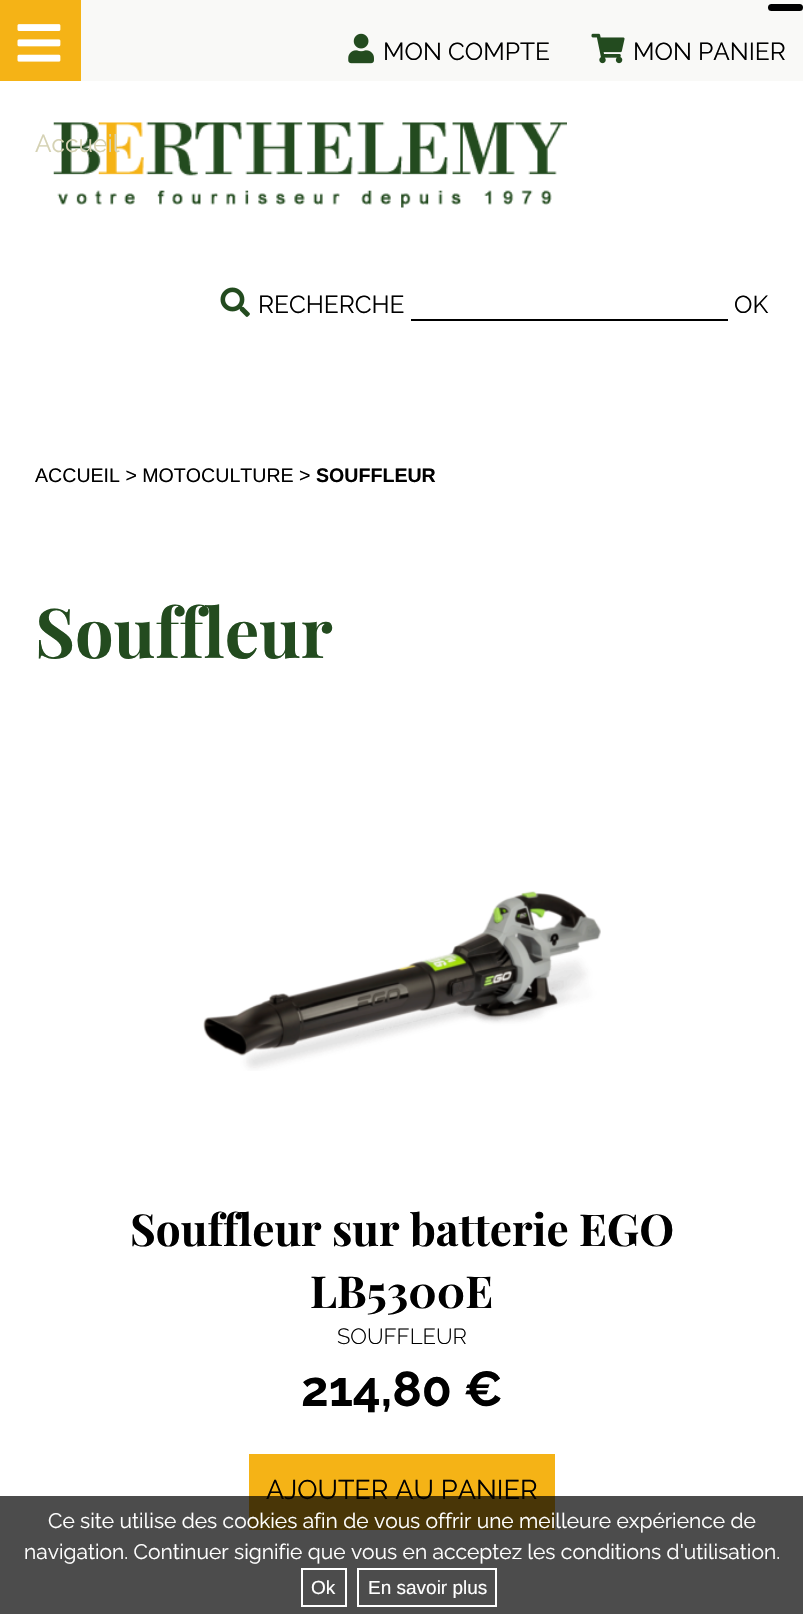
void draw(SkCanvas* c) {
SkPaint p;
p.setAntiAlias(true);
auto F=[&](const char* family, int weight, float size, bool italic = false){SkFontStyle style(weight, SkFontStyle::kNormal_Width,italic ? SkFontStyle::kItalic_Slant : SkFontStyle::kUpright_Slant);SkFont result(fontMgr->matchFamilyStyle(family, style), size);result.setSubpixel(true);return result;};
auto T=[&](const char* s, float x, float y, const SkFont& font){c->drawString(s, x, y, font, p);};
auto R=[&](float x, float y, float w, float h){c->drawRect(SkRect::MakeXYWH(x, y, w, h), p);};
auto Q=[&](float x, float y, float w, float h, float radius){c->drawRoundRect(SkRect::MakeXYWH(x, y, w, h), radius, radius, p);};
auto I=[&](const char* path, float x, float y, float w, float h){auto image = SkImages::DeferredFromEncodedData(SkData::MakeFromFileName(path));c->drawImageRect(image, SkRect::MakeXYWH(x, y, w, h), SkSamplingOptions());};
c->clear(0xffffffff);
p.setColor(0xfff9f9f7);
R(81,0,722,81);
I("1.png",348,33,26,31);
auto f1 = F("Raleway",400,24.5);
p.setColor(0xff000000);
T("MON COMPTE",383,60,f1);
Q(768,4,35,7,3.5);
I("2.png",591,33,34,31);
T("MON PANIER",633,60,f1);
p.setColor(0xfff5b316);
R(0,0,81,81);
I("3.png",17,24,44,38);
I("4.png",53,122,514,86);
p.setColor(0xffd5d2b4);
T("Accueil",35,152,f1);
I("5.png",220,287,30,30);
p.setColor(0xff000000);
T("RECHERCHE",258,313,f1);
T("OK",734,313,f1);
R(411,319,317,2);
auto f2 = F("Liberation Sans",400,19.6);
T("ACCUEIL > MOTOCULTURE >",35,482,f2);
auto f3 = F("Liberation Sans",700,19.6);
T("SOUFFLEUR",316,482,f3);
auto f4 = F("Playfair Display",700,68.5);
p.setColor(0xff234b1f);
T("Souffleur",35,658,f4);
I("6.png",203,891,398,180);
auto f5 = F("Playfair Display",700,44.1);
p.setColor(0xff000000);
T("Souffleur sur batterie EGO",130,1246,f5);
T("LB5300E",310,1308,f5);
auto f6 = F("Raleway",300,22);
T("SOUFFLEUR",337,1344,f6);
auto f7 = F("Raleway",700,49);
T("214,80 €",301,1406,f7);
p.setColor(0xfff5b316);
R(249,1454,306,76);
auto f8 = F("Raleway",400,27);
p.setColor(0xff000000);
T("AJOUTER AU PANIER",266,1499,f8);
p.setColor(0xb3000000);
R(0,1496,803,118);
auto f9 = F("Raleway",400,21);
p.setColor(0xffffffff);
T("Ce site utilise des cookies afin de vous offrir une meilleure expérience de",48,1528,f9);
T("navigation. Continuer signifie que vous en acceptez les conditions d'utilisation.",24,1559,f9);
p.setStroke(true);
p.setStrokeWidth(2);
c->drawRect(SkRect::MakeXYWH(302,1569,44,37),p);
auto f10 = F("Liberation Sans",400,19);
p.setStroke(false);
T("Ok",311,1594,f10);
p.setStroke(true);
c->drawRect(SkRect::MakeXYWH(358,1569,138,37),p);
p.setStroke(false);
T("En savoir plus",368,1594,f10);
}
